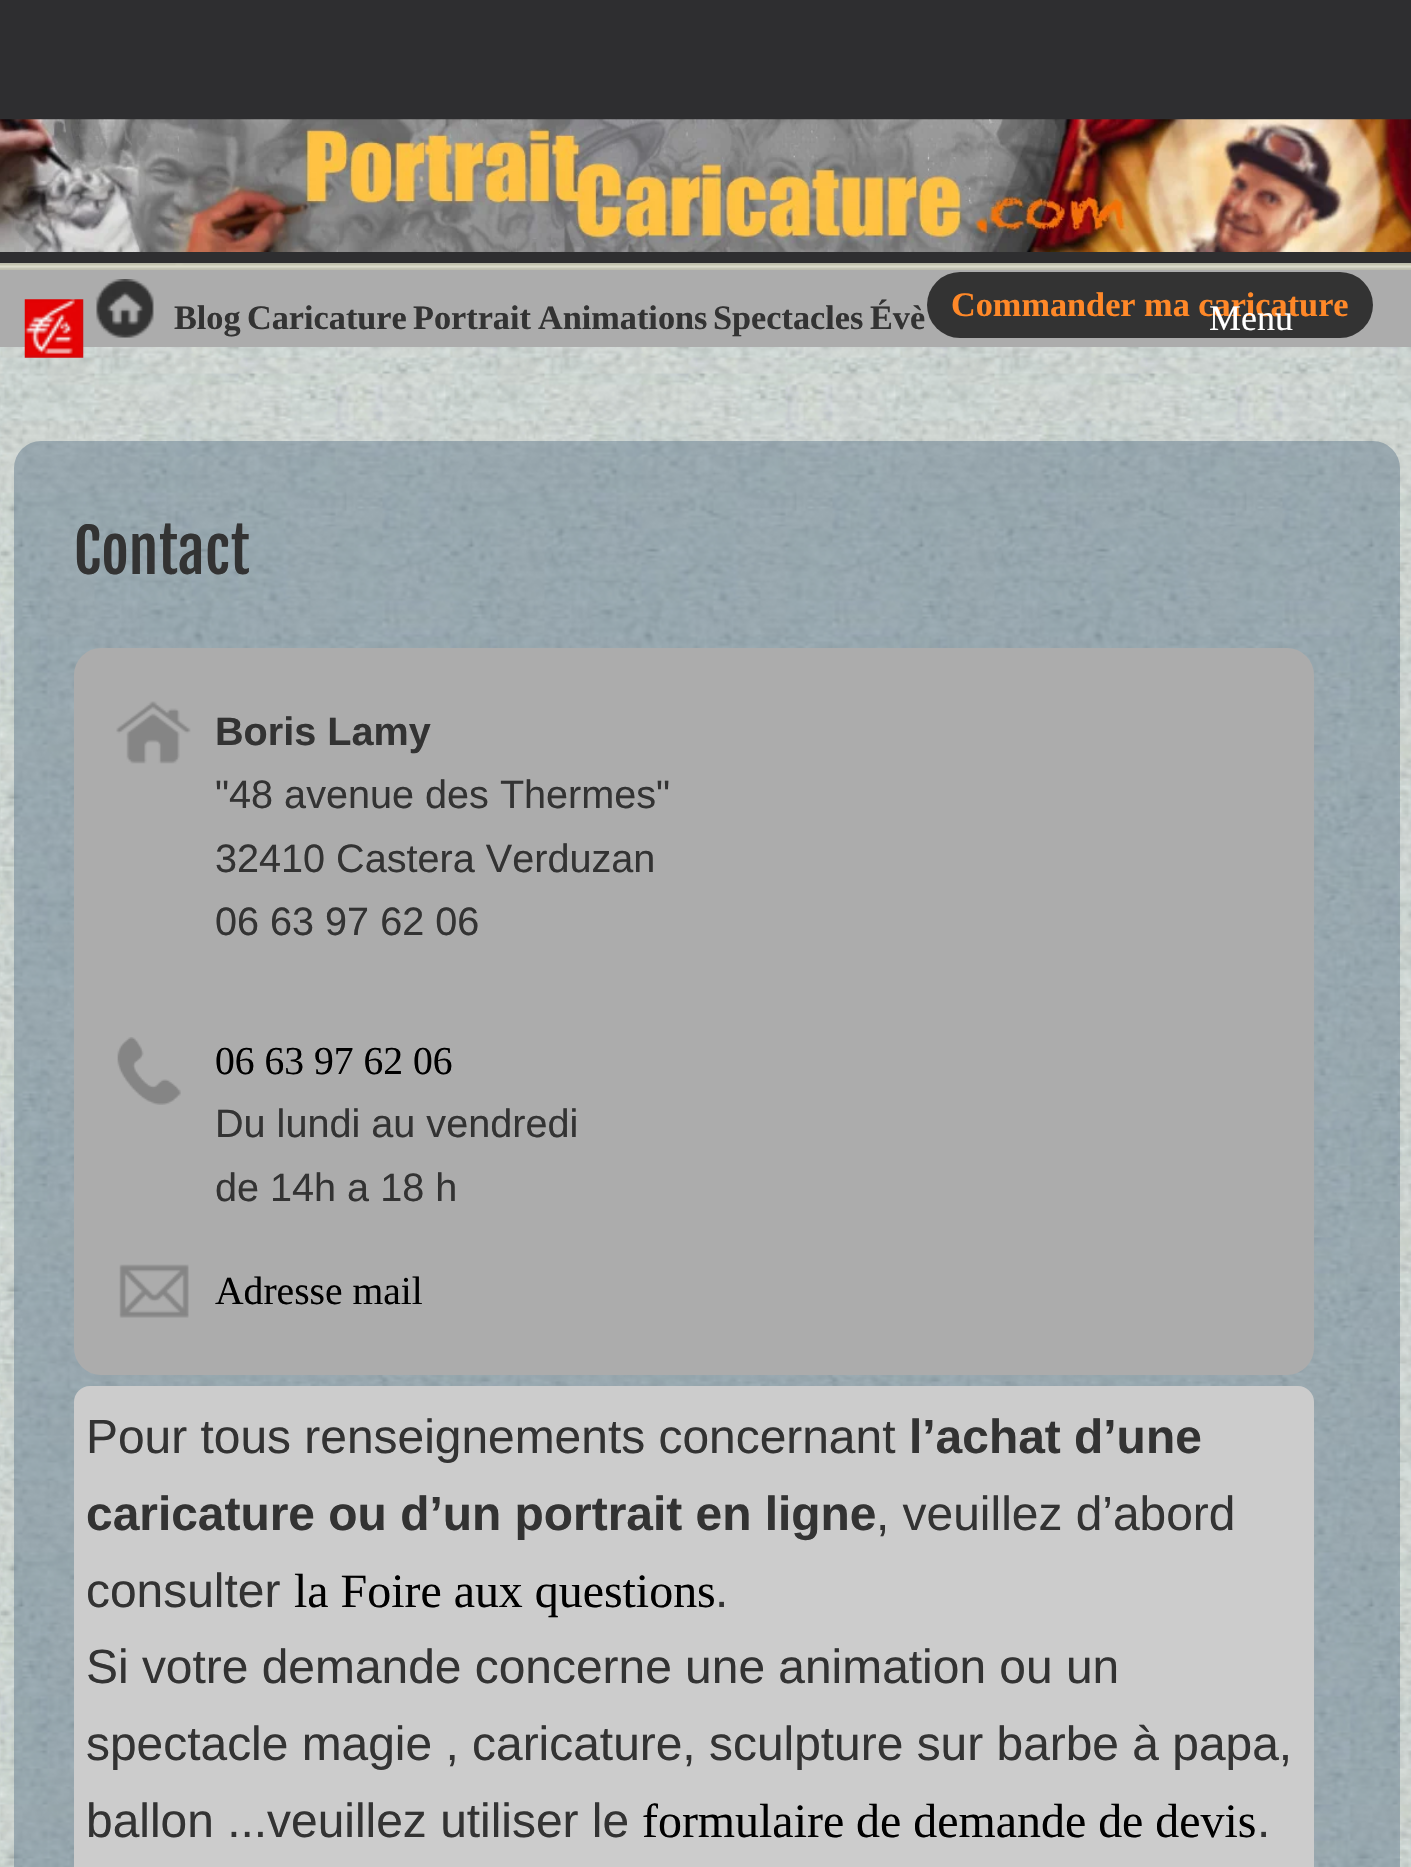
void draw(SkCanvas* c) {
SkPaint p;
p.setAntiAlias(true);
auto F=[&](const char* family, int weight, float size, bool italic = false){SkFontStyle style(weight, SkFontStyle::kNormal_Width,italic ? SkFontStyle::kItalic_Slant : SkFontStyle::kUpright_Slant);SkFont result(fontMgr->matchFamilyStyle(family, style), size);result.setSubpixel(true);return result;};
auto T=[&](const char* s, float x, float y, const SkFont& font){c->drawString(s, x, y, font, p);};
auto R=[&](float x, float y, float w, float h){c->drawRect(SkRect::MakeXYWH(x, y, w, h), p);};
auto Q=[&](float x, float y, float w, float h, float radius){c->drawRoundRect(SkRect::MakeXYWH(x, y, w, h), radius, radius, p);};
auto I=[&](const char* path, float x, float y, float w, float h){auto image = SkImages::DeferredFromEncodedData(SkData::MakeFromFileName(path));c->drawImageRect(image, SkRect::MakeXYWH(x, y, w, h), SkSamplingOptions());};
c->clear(0xffffffff);
I("1.png",0,347,1411,1520);
p.setColor(0xff2e2e30);
R(0,0,1411,263);
I("2.png",0,119,1411,133);
p.setColor(0xffacacac);
R(0,263,1411,84);
I("3.png",0,263,1411,7);
p.setColor(0xff333333);
Q(927,272,446,66,33);
auto f1 = F("Liberation Serif",700,34.25);
p.setColor(0xffff8828);
T("Commander ma caricature",951,316,f1);
I("4.png",24,299,60,59);
I("5.png",95,279,59,59);
p.setColor(0xff333333);
T("Blog",174,329,f1);
T("Caricature",247,329,f1);
T("Portrait",413,329,f1);
T("Animations",538,329,f1);
T("Spectacles",713,329,f1);
T("Évè",870,329,f1);
auto f2 = F("Liberation Serif",400,36);
p.setColor(0xffffffff);
T("Menu",1209,330,f2);
p.setColor(0x80647c8d);
Q(14,441,1386,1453,27);
auto f3 = F("Fjalla One",400,59.5);
p.setColor(0xff333333);
T("Contact",74,574,f3);
p.setColor(0xffacacac);
Q(74,648,1240,727,27);
I("6.png",116,701,75,63);
auto f4 = F("Liberation Sans",700,39.6);
p.setColor(0xff333333);
T("Boris Lamy",215,745,f4);
auto f5 = F("Liberation Sans",400,39.6);
T("\"48 avenue des Thermes\"",215,808,f5);
T("32410 Castera Verduzan",215,872,f5);
T("06 63 97 62 06",215,935,f5);
I("7.png",117,1037,64,68);
auto f6 = F("Liberation Serif",400,39.6);
p.setColor(0xff000000);
T("06 63 97 62 06",215,1074,f6);
p.setColor(0xff333333);
T("Du lundi au vendredi",215,1137,f5);
T("de 14h a 18 h",215,1201,f5);
I("8.png",119,1264,70,54);
p.setColor(0xff000000);
T("Adresse mail",215,1304,f6);
p.setColor(0xffcccccc);
Q(74,1386,1240,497,16);
auto f7 = F("Liberation Sans",400,47.9);
p.setColor(0xff333333);
T("Pour tous renseignements concernant",86,1453,f7);
auto f8 = F("Liberation Sans",700,47.9);
T("l’achat d’une",909,1453,f8);
T("caricature ou d’un portrait en ligne",86,1530,f8);
T(", veuillez d’abord",876,1530,f7);
T("consulter",86,1607,f7);
auto f9 = F("Liberation Serif",400,47.9);
p.setColor(0xff000000);
T("la Foire aux questions",294,1607,f9);
p.setColor(0xff333333);
T(".",715,1607,f7);
T("Si votre demande concerne une animation ou un",86,1683,f7);
T("spectacle magie , caricature, sculpture sur barbe à papa,",86,1760,f7);
T("ballon ...veuillez utiliser le",86,1837,f7);
p.setColor(0xff000000);
T("formulaire de demande de devis",642,1837,f9);
p.setColor(0xff333333);
T(".",1257,1837,f7);
}
